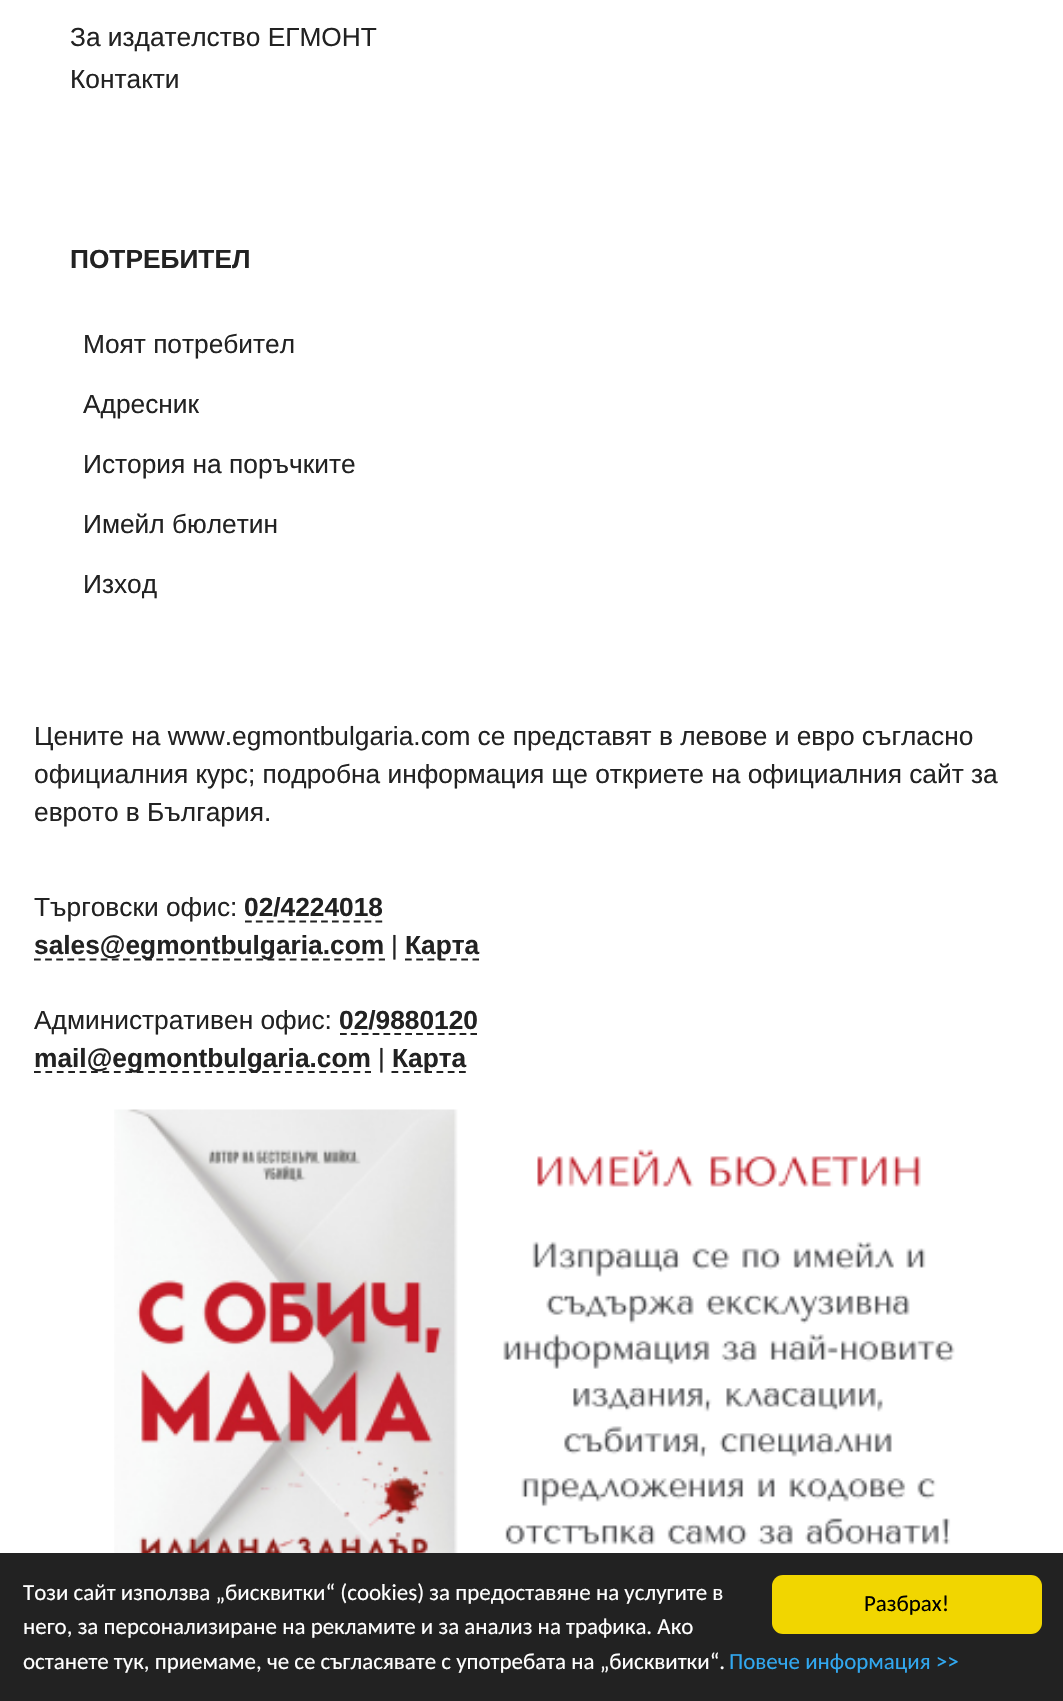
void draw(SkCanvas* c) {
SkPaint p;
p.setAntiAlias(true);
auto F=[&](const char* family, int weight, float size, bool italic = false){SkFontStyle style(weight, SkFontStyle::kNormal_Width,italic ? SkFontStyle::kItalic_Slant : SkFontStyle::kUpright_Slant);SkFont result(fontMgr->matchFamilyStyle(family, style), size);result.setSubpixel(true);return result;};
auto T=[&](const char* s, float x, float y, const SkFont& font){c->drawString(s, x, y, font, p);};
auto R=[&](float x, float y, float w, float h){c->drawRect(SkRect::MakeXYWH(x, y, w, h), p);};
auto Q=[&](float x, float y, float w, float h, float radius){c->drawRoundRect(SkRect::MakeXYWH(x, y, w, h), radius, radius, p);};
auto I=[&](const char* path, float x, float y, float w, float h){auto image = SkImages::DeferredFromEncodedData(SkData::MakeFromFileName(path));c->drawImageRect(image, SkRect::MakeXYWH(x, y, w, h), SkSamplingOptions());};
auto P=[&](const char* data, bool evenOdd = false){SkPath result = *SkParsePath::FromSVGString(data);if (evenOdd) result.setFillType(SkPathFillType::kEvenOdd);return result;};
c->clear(0xffffffff);
auto f1 = F("Liberation Sans",400,26.3);
p.setColor(0xff222222);
T("За издателство ЕГМОНТ",70,46,f1);
T("Контакти",70,88,f1);
auto f2 = F("Liberation Sans",700,26.3);
T("ПОТРЕБИТЕЛ",70,268,f2);
T("Моят потребител",83,353,f1);
T("Адресник",83,413,f1);
T("История на поръчките",83,473,f1);
T("Имейл бюлетин",83,533,f1);
T("Изход",83,593,f1);
T("Цените на www.egmontbulgaria.com се представят в левове и евро съгласно",34,745,f1);
T("официалния курс; подробна информация ще откриете на официалния сайт за",34,783,f1);
T("еврото в България.",34,821,f1);
T("Търговски офис:",34,916,f1);
T("02/4224018",244,916,f2);
p.setStroke(true);
p.setStrokeWidth(2.2);
p.setPathEffect(SkDashPathEffect::Make({{6.75f,4.12f}}, 0));
c->drawPath(P("M245 921.5h137.5"),p);
p.setPathEffect(nullptr);
p.setPathEffect(SkDashPathEffect::Make({{6.75f,4.37f}}, 0));
c->drawPath(P("M34 959.5h351"),p);
p.setPathEffect(nullptr);
p.setStroke(false);
T("sales@egmontbulgaria.com",34,954,f2);
T("|",391,954,f1);
p.setStroke(true);
p.setPathEffect(SkDashPathEffect::Make({{6.75f,4.5f}}, 0));
c->drawPath(P("M405 959.5h74"),p);
p.setPathEffect(nullptr);
p.setStroke(false);
T("Карта",405,954,f2);
T("Административен офис:",34,1029,f1);
T("02/9880120",339,1029,f2);
p.setStroke(true);
p.setPathEffect(SkDashPathEffect::Make({{6.75f,4.12f}}, 0));
c->drawPath(P("M340 1034h137"),p);
p.setPathEffect(nullptr);
p.setPathEffect(SkDashPathEffect::Make({{6.75f,4.66f}}, 0));
c->drawPath(P("M34 1072h337"),p);
p.setPathEffect(nullptr);
p.setStroke(false);
T("mail@egmontbulgaria.com",34,1067,f2);
T("|",378,1067,f1);
p.setStroke(true);
p.setPathEffect(SkDashPathEffect::Make({{6.75f,4.5f}}, 0));
c->drawPath(P("M391.5 1072h74.5"),p);
p.setPathEffect(nullptr);
p.setStroke(false);
T("Карта",392,1067,f2);
I("1.png",114,1109,841,444);
R(0,1553,1063,148);
auto f3 = F("Carlito",400,22.95);
p.setColor(0xffffffff);
T("Този сайт използва „бисквитки“ (cookies) за предоставяне на услугите в",23,1600,f3);
T("него, за персонализиране на рекламите и за анализ на трафика. Ако",23,1634,f3);
T("останете тук, приемаме, че се съгласявате с употребата на „бисквитки“.",23,1669,f3);
p.setColor(0xff31a8f0);
T("Повече информация >>",729,1669,f3);
p.setColor(0xfff1d600);
Q(772,1575,270,59,11);
p.setColor(0xff000000);
T("Разбрах!",864,1611,f3);
}
